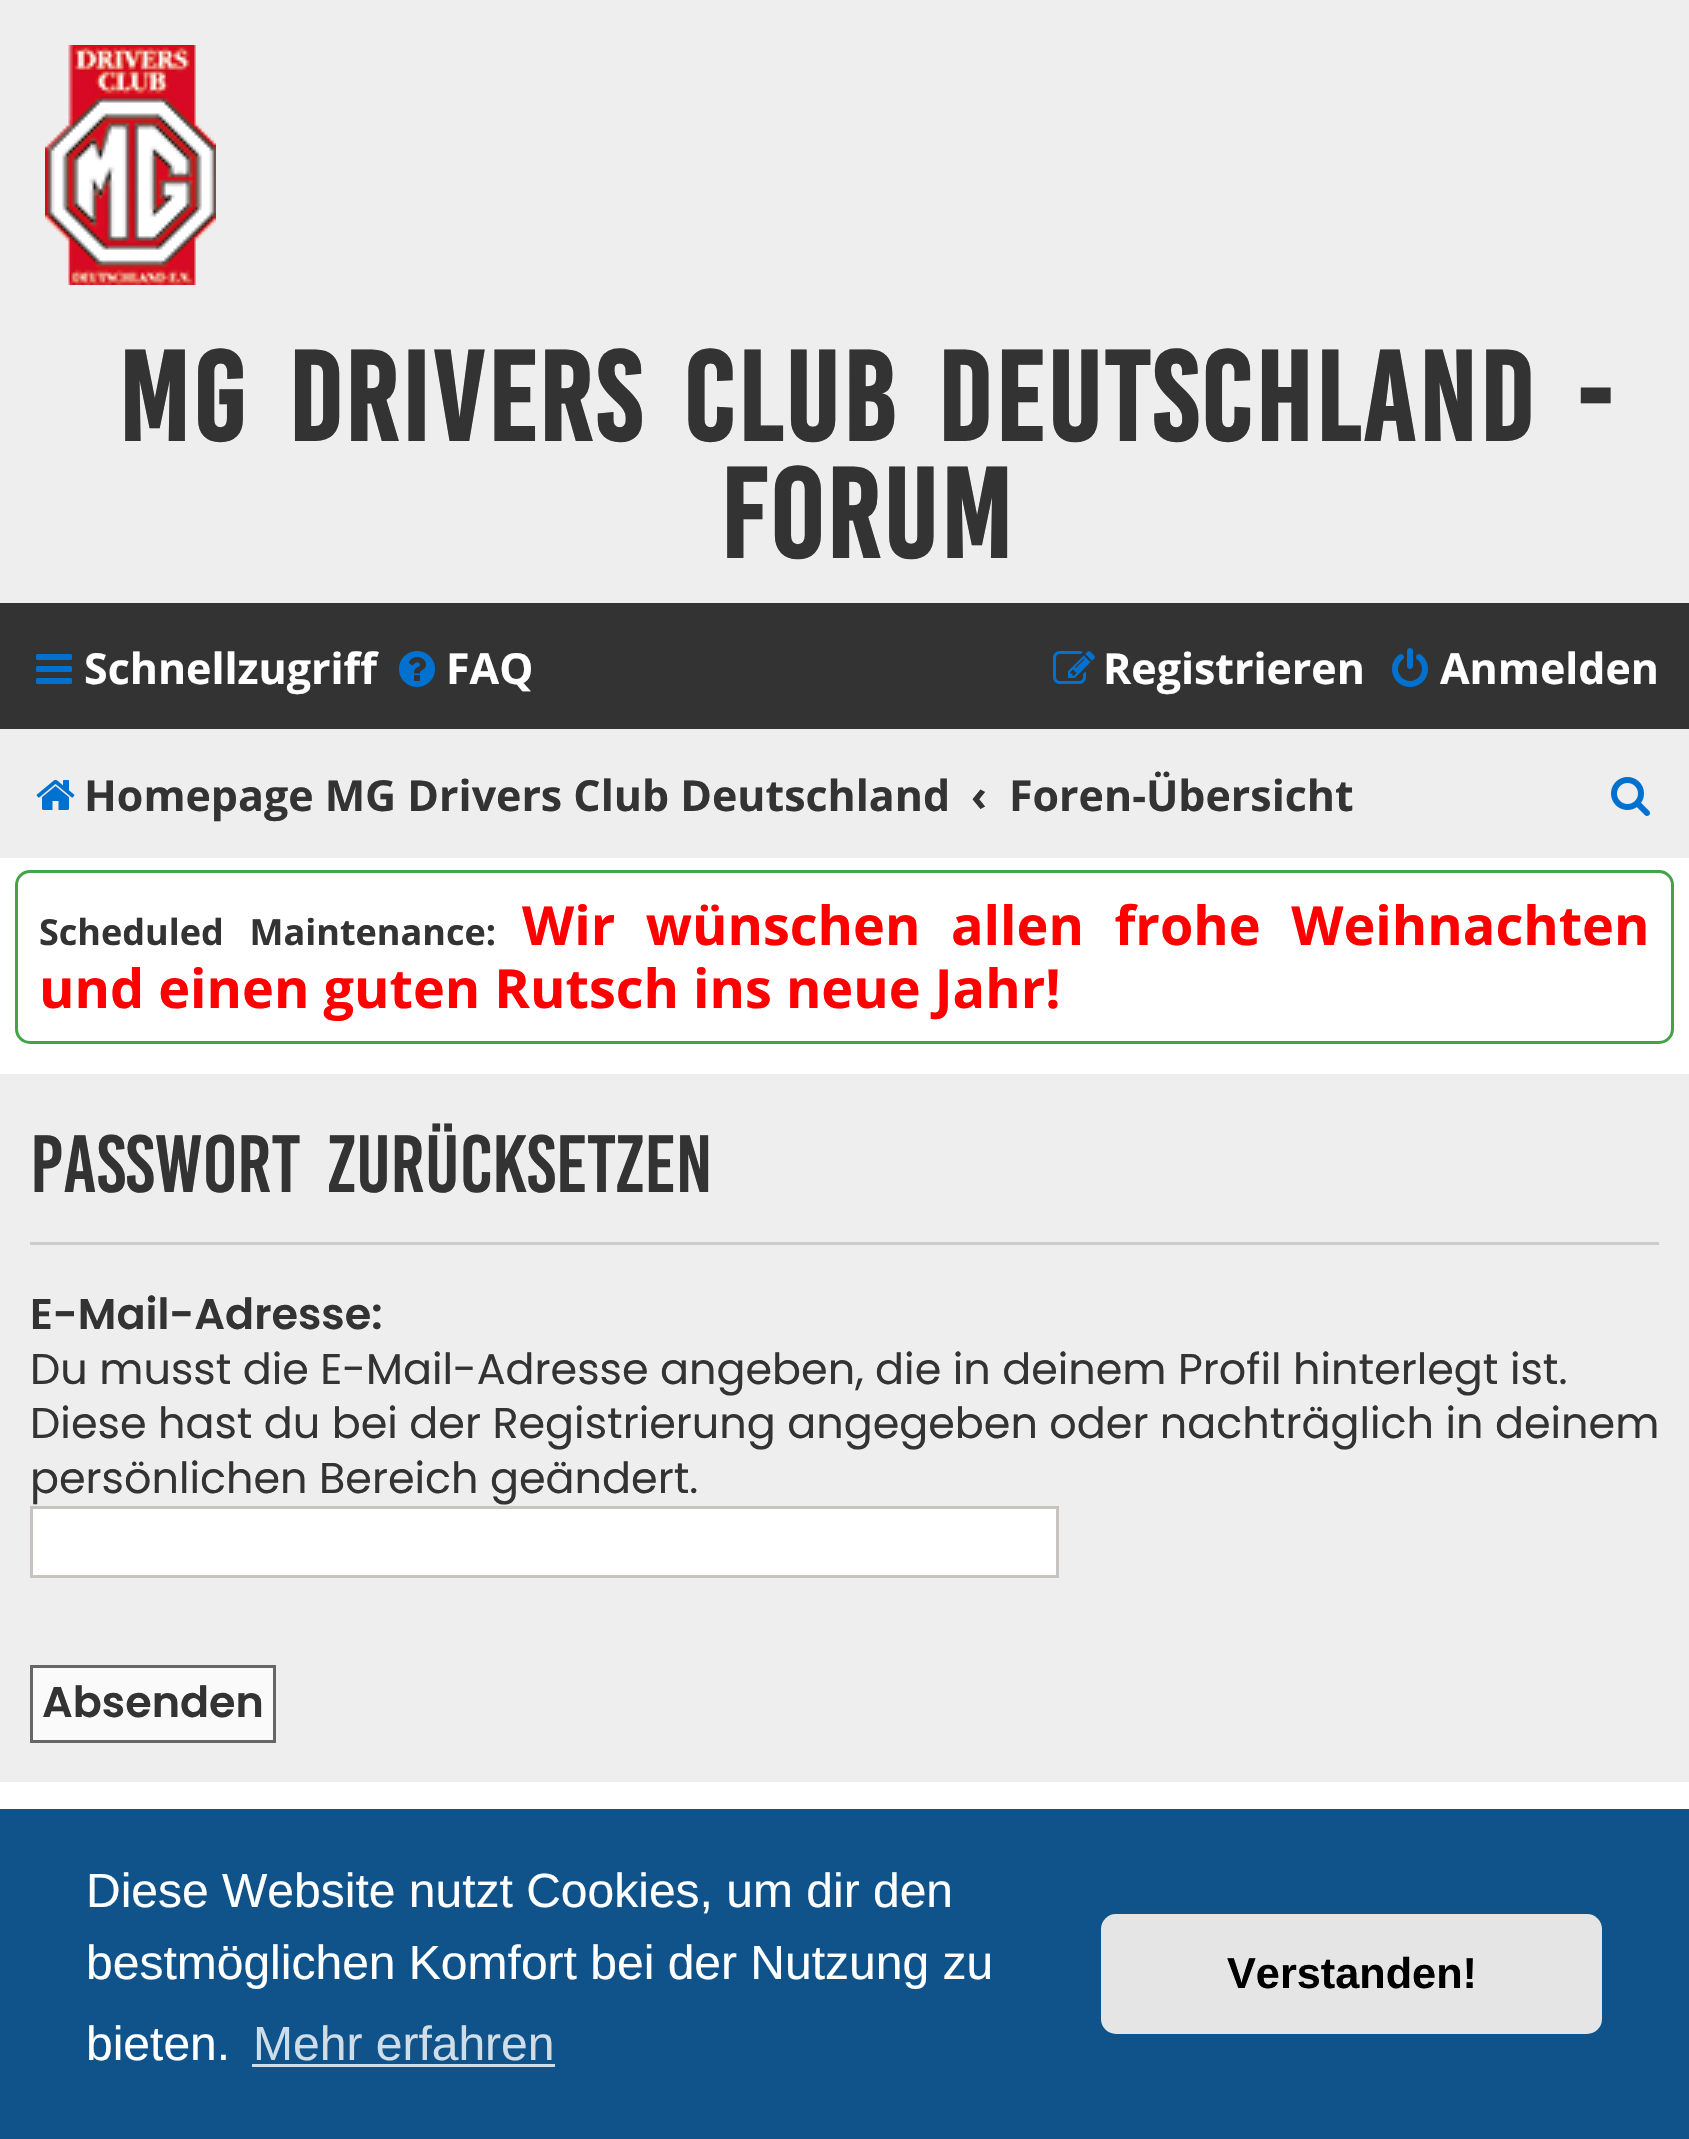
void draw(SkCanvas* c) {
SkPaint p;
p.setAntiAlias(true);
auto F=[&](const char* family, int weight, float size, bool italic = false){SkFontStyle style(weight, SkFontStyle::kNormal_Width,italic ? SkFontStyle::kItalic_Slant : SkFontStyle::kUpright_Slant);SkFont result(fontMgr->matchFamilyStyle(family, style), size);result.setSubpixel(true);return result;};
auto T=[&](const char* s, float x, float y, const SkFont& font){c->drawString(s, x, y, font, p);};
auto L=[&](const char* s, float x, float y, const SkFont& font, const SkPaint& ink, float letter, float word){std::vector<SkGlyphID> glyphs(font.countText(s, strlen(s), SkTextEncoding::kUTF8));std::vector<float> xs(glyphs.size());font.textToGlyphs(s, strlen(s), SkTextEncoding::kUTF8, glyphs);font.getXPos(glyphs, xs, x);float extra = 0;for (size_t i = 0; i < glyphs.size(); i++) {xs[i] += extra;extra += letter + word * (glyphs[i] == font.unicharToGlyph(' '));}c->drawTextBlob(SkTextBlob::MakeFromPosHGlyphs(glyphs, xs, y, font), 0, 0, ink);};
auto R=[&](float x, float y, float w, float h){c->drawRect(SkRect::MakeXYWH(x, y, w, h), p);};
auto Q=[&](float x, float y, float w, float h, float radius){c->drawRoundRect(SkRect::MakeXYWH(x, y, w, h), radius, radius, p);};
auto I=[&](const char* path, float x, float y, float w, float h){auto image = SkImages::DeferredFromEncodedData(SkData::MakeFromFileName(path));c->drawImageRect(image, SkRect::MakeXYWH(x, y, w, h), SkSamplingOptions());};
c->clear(0xffffffff);
p.setColor(0xffeeeeee);
R(0,0,1689,603);
I("1.png",45,45,171,240);
auto f1 = F("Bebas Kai",700,97.5);
p.setColor(0xff333333);
L("MG Drivers Club Deutschland -",118,441,f1,p,3,12);
L("Forum",720,558,f1,p,3,0);
R(0,603,1689,126);
I("2.png",36,654,36,30);
auto f2 = F("Open Sans",700,42.9);
p.setColor(0xffffffff);
T("Schnellzugriff",84,684,f2);
I("3.png",399,651,36,36);
T("FAQ",446,684,f2);
I("4.png",1053,651,42,33);
T("Registrieren",1103,684,f2);
I("5.png",1392,648,36,39);
T("Anmelden",1440,684,f2);
p.setColor(0xffeeeeee);
R(0,729,1689,129);
I("6.png",36,779,39,31);
p.setColor(0xff333333);
T("Homepage MG Drivers Club Deutschland",84,811,f2);
T("‹",971,811,f2);
T("Foren-Übersicht",1009,811,f2);
I("7.png",1611,777,39,39);
p.setStroke(true);
p.setStrokeWidth(3);
p.setColor(0xff43a347);
c->drawRoundRect(SkRect::MakeXYWH(16.5,871.5,1656,171),13.5,13.5,p);
auto f3 = F("Open Sans",700,36);
p.setStroke(false);
p.setColor(0xff333333);
L("Scheduled Maintenance:",39,945,f3,p,0,16.5);
auto f4 = F("Open Sans",700,54);
p.setColor(0xffff0000);
L("Wir wünschen allen frohe Weihnachten",522,945,f4,p,0,16.5);
T("und einen guten Rutsch ins neue Jahr!",39,1008,f4);
p.setColor(0xffeeeeee);
R(0,1074,1689,708);
p.setColor(0xffcccccc);
R(30,1242,1629,3);
auto f5 = F("Bebas Kai",400,62.4);
p.setColor(0xff333333);
L("Passwort zurücksetzen",30,1192,f5,p,0,12);
auto f6 = F("Poppins",600,42.9);
T("E-Mail-Adresse:",30,1329,f6);
auto f7 = F("Poppins",400,42.9);
T("Du musst die E-Mail-Adresse angeben, die in deinem Profil hinterlegt ist.",30,1384,f7);
T("Diese hast du bei der Registrierung angegeben oder nachträglich in deinem",30,1438,f7);
T("persönlichen Bereich geändert.",30,1493,f7);
p.setColor(0xffffffff);
c->drawRect(SkRect::MakeXYWH(31.5,1507.5,1026,69),p);
p.setStroke(true);
p.setColor(0xffc7c3bf);
c->drawRect(SkRect::MakeXYWH(31.5,1507.5,1026,69),p);
p.setStroke(false);
p.setColor(0xfffafafa);
c->drawRect(SkRect::MakeXYWH(31.5,1666.5,243,75),p);
p.setStroke(true);
p.setColor(0xff666666);
c->drawRect(SkRect::MakeXYWH(31.5,1666.5,243,75),p);
p.setStroke(false);
p.setColor(0xff333333);
T("Absenden",42,1717,f6);
p.setColor(0xff0f538a);
R(0,1809,1689,330);
auto f8 = F("Liberation Sans",400,48);
p.setColor(0xffffffff);
T("Diese Website nutzt Cookies, um dir den",86,1907,f8);
T("bestmöglichen Komfort bei der Nutzung zu",86,1979,f8);
T("bieten.",86,2060,f8);
p.setColor(0xffcfdde8);
T("Mehr erfahren",253,2060,f8);
R(252,2064,303,3);
p.setColor(0xffe5e5e5);
Q(1101,1914,501,120,15);
auto f9 = F("Liberation Sans",700,43.25);
p.setColor(0xff000000);
T("Verstanden!",1227,1988,f9);
}
